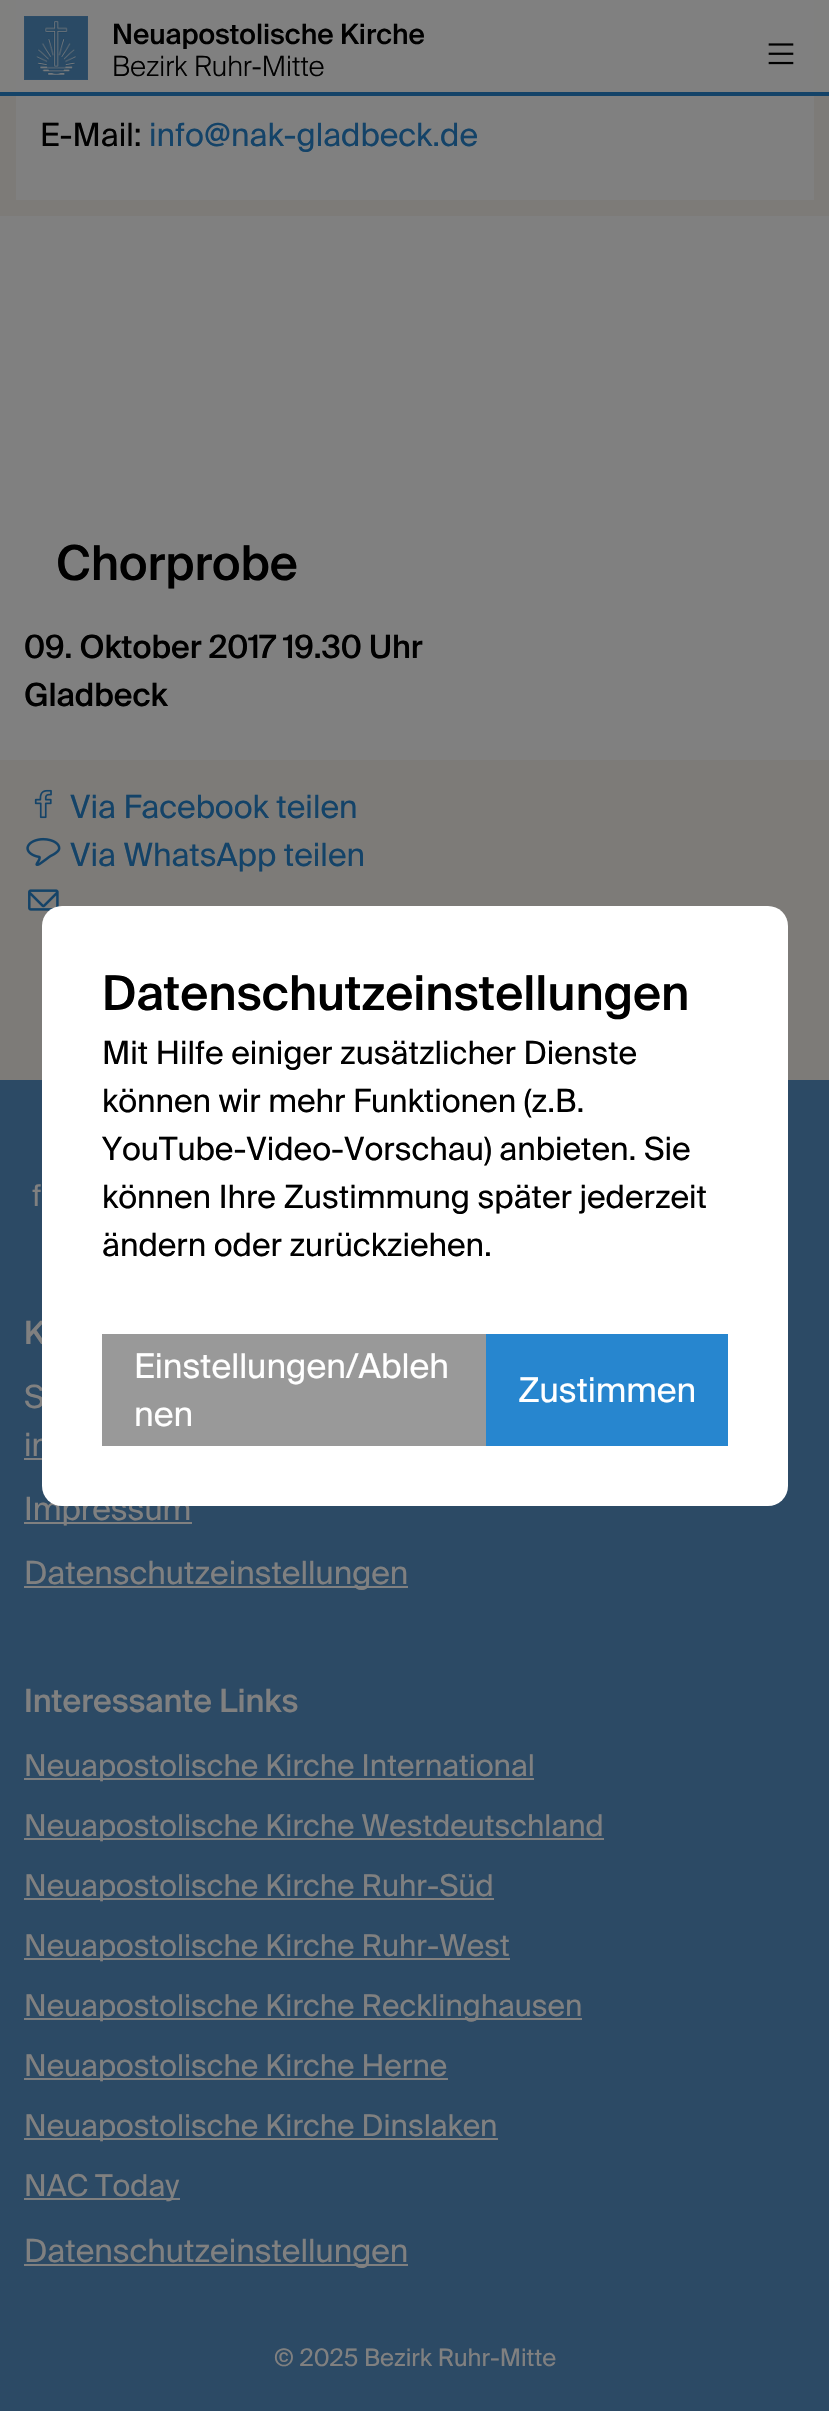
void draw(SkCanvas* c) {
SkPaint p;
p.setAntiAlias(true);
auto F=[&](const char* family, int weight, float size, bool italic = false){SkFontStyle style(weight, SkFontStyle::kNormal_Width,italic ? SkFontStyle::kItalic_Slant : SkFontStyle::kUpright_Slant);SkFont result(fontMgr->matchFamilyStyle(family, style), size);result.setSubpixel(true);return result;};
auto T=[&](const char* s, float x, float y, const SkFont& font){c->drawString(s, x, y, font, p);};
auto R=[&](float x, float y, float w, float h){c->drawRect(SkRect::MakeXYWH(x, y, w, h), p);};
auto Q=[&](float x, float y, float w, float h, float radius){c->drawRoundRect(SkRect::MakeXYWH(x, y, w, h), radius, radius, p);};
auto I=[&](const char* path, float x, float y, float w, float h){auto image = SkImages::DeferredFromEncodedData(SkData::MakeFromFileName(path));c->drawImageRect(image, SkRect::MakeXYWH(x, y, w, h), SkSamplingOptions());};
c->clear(0xff7d7b78);
p.setColor(0xff808080);
R(16,0,798,200);
p.setColor(0xe6808080);
R(0,0,829,92);
p.setColor(0xff144368);
R(0,92,829,4);
I("1.png",24,16,64,64);
auto f1 = F("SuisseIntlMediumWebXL",500,28);
p.setColor(0xff000000);
T("Neuapostolische Kirche",112,44,f1);
auto f2 = F("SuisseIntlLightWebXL",300,28);
T("Bezirk Ruhr-Mitte",112,76,f2);
I("2.png",768,43,26,22);
auto f3 = F("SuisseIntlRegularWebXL",400,32);
T("E-Mail:",40,146,f3);
p.setColor(0xff144368);
T("info@nak-gladbeck.de",149,146,f3);
p.setColor(0xff808080);
R(0,216,829,544);
auto f4 = F("SuisseIntlMediumWebXL",500,48);
p.setColor(0xff000000);
T("Chorprobe",56,580,f4);
auto f5 = F("SuisseIntlMediumWebXL",500,32);
T("09. Oktober 2017 19.30 Uhr",24,658,f5);
T("Gladbeck",24,706,f5);
I("3.png",34,789,18,30);
p.setColor(0xff144368);
T("Via Facebook teilen",70,818,f3);
I("4.png",26,837,35,29);
T("Via WhatsApp teilen",70,866,f3);
I("5.png",28,889,31,22);
p.setColor(0xff2c4a65);
R(0,1080,829,1331);
p.setColor(0xff808080);
T("K",24,1344,f5);
T("S",24,1408,f3);
T("in",24,1456,f3);
R(24,1522,168,2);
T("Impressum",24,1520,f3);
p.setColor(0xffffffff);
Q(42,906,746,600,20);
p.setColor(0xff000000);
T("Datenschutzeinstellungen",102,1010,f4);
T("Mit Hilfe einiger zusätzlicher Dienste",102,1064,f3);
T("können wir mehr Funktionen (z.B.",102,1112,f3);
T("YouTube-Video-Vorschau) anbieten. Sie",102,1160,f3);
T("können Ihre Zustimmung später jederzeit",102,1208,f3);
T("ändern oder zurückziehen.",102,1256,f3);
p.setColor(0xff999999);
R(102,1334,384,112);
auto f6 = F("SuisseIntlRegularWebXL",400,34);
p.setColor(0xffffffff);
T("Einstellungen/Ableh",134,1378,f6);
T("nen",134,1426,f6);
p.setColor(0xff2786cf);
R(486,1334,242,112);
p.setColor(0xffffffff);
T("Zustimmen",518,1402,f6);
auto f7 = F("SuisseIntlRegularWebXL",400,30);
p.setColor(0xff808080);
T("f",32,1206,f7);
R(24,1458,18,2);
R(24,1586,384,2);
T("Datenschutzeinstellungen",24,1584,f3);
T("Interessante Links",24,1712,f5);
R(24,1778,510,2);
T("Neuapostolische Kirche International",24,1776,f7);
R(24,1838,580,2);
T("Neuapostolische Kirche Westdeutschland",24,1836,f7);
R(24,1898,470,2);
T("Neuapostolische Kirche Ruhr-Süd",24,1896,f7);
R(24,1958,486,2);
T("Neuapostolische Kirche Ruhr-West",24,1956,f7);
R(24,2018,558,2);
T("Neuapostolische Kirche Recklinghausen",24,2016,f7);
R(24,2078,424,2);
T("Neuapostolische Kirche Herne",24,2076,f7);
R(24,2138,474,2);
T("Neuapostolische Kirche Dinslaken",24,2136,f7);
R(24,2198,156,2);
T("NAC Today",24,2196,f7);
R(24,2264,384,2);
T("Datenschutzeinstellungen",24,2262,f3);
auto f8 = F("SuisseIntlRegularWebXL",400,24);
T("© 2025 Bezirk Ruhr-Mitte",274,2366,f8);
}
